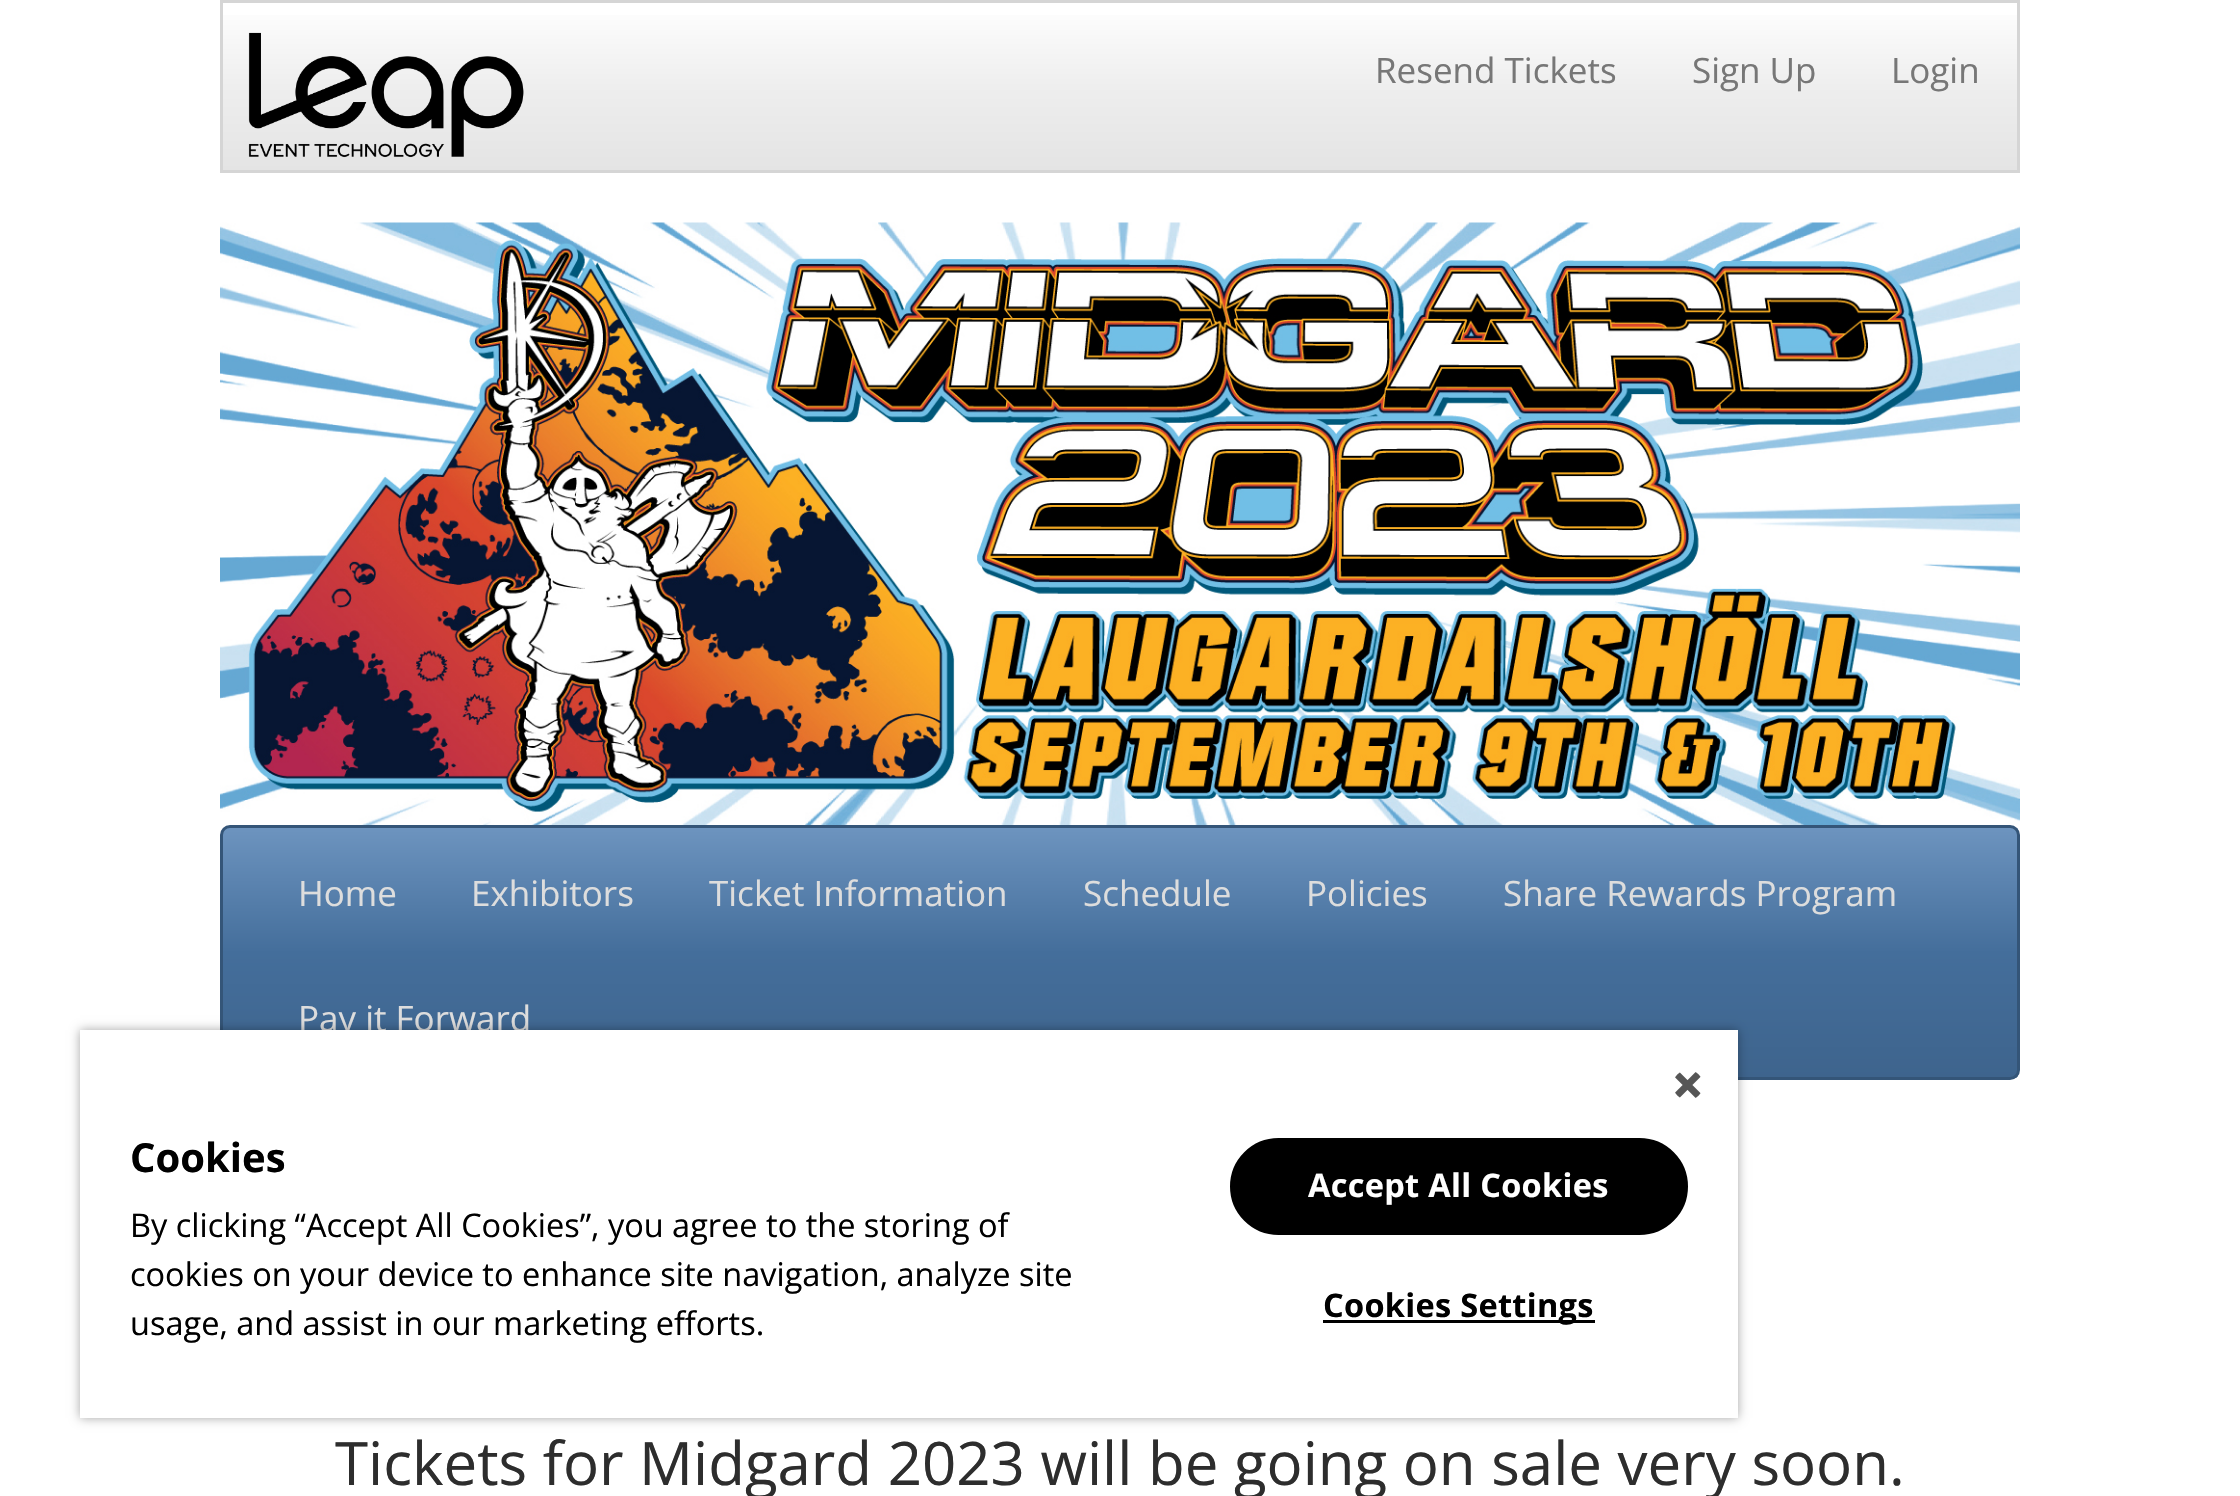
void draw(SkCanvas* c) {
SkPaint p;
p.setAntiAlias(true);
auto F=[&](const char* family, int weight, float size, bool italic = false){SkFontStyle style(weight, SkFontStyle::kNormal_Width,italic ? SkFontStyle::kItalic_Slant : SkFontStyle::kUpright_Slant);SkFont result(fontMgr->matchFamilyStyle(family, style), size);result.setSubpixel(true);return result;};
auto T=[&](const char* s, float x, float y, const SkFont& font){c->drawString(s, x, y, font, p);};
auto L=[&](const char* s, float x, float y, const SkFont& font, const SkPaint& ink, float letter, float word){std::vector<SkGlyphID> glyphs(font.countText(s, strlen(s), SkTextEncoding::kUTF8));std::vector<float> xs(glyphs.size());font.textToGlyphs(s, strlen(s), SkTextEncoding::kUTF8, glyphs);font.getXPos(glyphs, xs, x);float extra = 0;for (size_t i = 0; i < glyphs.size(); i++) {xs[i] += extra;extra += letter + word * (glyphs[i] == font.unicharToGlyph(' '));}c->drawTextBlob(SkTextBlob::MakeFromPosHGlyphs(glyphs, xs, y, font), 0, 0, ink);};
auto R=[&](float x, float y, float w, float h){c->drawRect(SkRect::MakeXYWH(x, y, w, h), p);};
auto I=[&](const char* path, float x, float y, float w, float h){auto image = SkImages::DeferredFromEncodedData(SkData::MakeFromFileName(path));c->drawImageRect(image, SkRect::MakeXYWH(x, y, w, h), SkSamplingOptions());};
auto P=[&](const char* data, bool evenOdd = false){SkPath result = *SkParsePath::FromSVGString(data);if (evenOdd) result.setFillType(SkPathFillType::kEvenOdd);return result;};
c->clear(0xffffffff);
{
const SkColor colors[] = {0xffffffff,0xffeeeeee,0xffe4e4e4};
const float stops[] = {0,.5,1};
const SkPoint ends[] = {{1120,2.5}, {1120,170}};
p.setShader(SkGradientShader::MakeLinear(ends, colors, stops, 3, SkTileMode::kClamp));
p.setAlpha(255);
}
R(223,15,1794,155);
p.setStroke(true);
p.setStrokeWidth(3);
p.setShader(nullptr);
p.setColor(0xffd5d5d5);
c->drawRect(SkRect::MakeXYWH(221.5,1.5,1797,170),p);
I("1.png",248,32,276,126);
auto f1 = F("Open Sans",400,35);
p.setStroke(false);
p.setColor(0xff777777);
T("Resend Tickets",1375,83,f1);
T("Sign Up",1692,83,f1);
T("Login",1891,83,f1);
I("2.png",220,222,1800,603);
c->save();
c->clipPath(P("M230 825h1780c5.5 0 10 4.5 10 10v235c0 5.5-4.5 10-10 10h-1780c-5.5 0-10-4.5-10-10v-235c0-5.5 4.5-10 10-10z"),true);
{
const SkColor colors[] = {0xff6d94bf,0xff446e9b,0xff3e648d};
const float stops[] = {0,.5,1};
const SkPoint ends[] = {{1120,827}, {1120,1078}};
p.setShader(SkGradientShader::MakeLinear(ends, colors, stops, 3, SkTileMode::kClamp));
p.setAlpha(255);
}
R(223,828,1795,250);
c->restore();
p.setStroke(true);
p.setShader(nullptr);
p.setColor(0xff345578);
c->drawRoundRect(SkRect::MakeXYWH(221.5,826.5,1797,252),8.5,8.5,p);
p.setStroke(false);
p.setColor(0xffdddddd);
T("Home",298,906,f1);
T("Exhibitors",471,906,f1);
T("Ticket Information",709,906,f1);
T("Schedule",1083,906,f1);
T("Policies",1306,906,f1);
T("Share Rewards Program",1503,906,f1);
T("Pay it Forward",298,1031,f1);
auto f2 = F("Open Sans",400,60);
p.setColor(0xff2d2d2d);
T("Tickets for Midgard 2023 will be going on sale very soon.",335,1485,f2);
p.setColor(0x59000000);
p.setMaskFilter(SkMaskFilter::MakeBlur(kNormal_SkBlurStyle, 5));
c->drawRect(SkRect::MakeXYWH(80,1030,1658,388),p);
p.setMaskFilter(nullptr);
p.setColor(0xffffffff);
R(80,1030,1658,388);
I("3.png",1675,1072,26,26);
auto f3 = F("Open Sans",700,40);
p.setColor(0xff000000);
T("Cookies",130,1172,f3);
auto f4 = F("Open Sans",400,32.5);
T("By clicking “Accept All Cookies”, you agree to the storing of",130,1237,f4);
T("cookies on your device to enhance site navigation, analyze site",130,1286,f4);
T("usage, and assist in our marketing efforts.",130,1335,f4);
c->drawRoundRect(SkRect::MakeXYWH(1231.5,1139.5,455,94),47,47,p);
p.setStroke(true);
c->drawRoundRect(SkRect::MakeXYWH(1231.5,1139.5,455,94),47,47,p);
auto f5 = F("Open Sans",700,32.5);
p.setStroke(false);
p.setColor(0xffffffff);
L("Accept All Cookies",1308,1197,f5,p,.3,0);
p.setColor(0xff000000);
R(1323,1320,272,3);
L("Cookies Settings",1323,1317,f5,p,.3,0);
}
